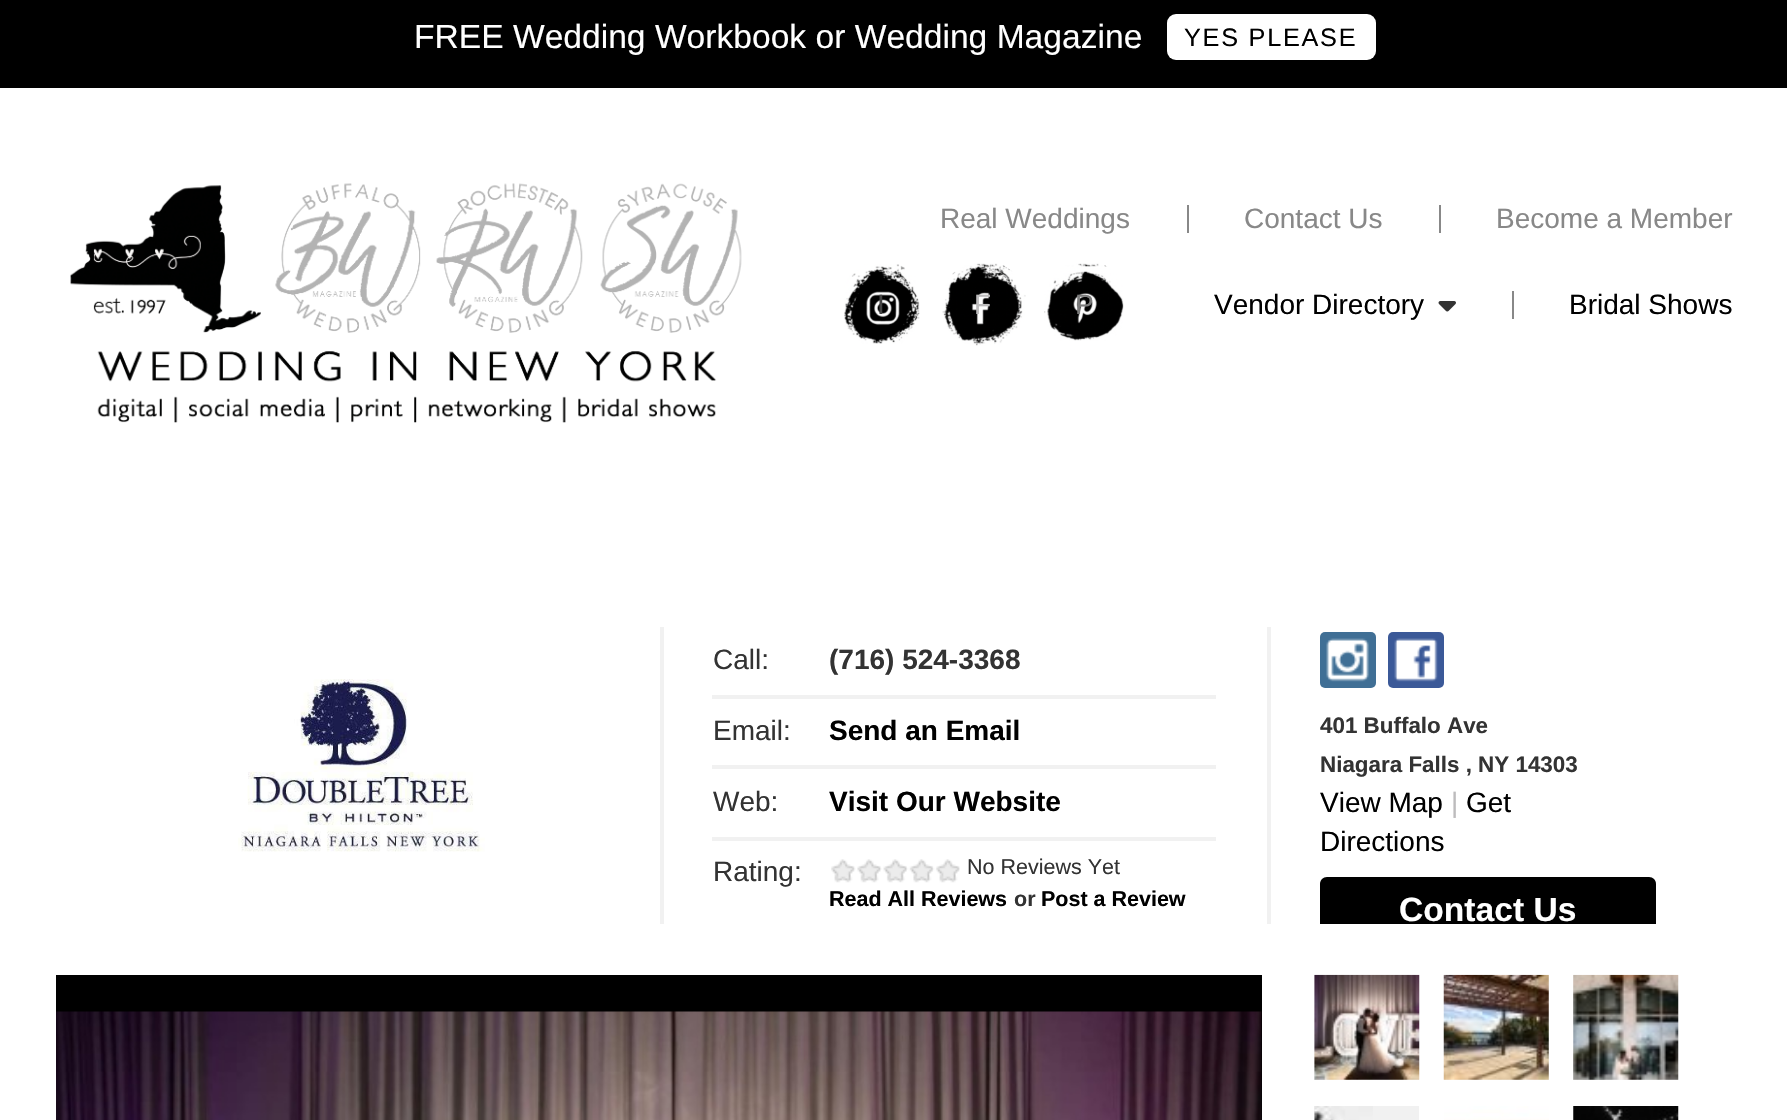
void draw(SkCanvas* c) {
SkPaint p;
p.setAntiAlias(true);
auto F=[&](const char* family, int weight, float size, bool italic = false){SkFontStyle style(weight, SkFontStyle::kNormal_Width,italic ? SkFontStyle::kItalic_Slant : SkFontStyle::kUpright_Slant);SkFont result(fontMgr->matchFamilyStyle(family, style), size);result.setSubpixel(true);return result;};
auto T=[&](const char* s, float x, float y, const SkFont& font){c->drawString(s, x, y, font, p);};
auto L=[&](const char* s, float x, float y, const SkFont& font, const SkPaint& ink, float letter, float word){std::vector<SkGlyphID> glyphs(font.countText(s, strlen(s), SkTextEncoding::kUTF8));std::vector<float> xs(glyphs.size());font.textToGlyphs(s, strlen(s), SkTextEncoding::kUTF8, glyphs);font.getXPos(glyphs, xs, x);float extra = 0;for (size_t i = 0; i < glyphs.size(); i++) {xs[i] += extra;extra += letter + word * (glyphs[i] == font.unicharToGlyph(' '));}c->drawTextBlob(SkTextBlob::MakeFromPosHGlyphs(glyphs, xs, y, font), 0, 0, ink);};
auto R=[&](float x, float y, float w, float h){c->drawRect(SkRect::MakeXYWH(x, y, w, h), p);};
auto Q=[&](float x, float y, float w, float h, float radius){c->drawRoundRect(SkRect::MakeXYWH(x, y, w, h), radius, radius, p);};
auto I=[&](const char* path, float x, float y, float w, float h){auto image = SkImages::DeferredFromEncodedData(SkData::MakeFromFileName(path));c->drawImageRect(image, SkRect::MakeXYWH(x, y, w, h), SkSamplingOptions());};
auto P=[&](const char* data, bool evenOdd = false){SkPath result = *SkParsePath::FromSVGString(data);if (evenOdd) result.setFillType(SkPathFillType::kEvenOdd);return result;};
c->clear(0xff000000);
auto f1 = F("Liberation Sans",400,33.6);
p.setColor(0xffffffff);
T("FREE Wedding Workbook or Wedding Magazine",414,48,f1);
Q(1167,14,209,46,9);
auto f2 = F("Liberation Sans",400,25.25);
p.setColor(0xff000000);
L("YES PLEASE",1184,46,f2,p,1.75,0);
p.setColor(0xffffffff);
R(0,88,1787,1032);
I("1.png",70,183,672,240);
p.setColor(0xb3ffffff);
R(275,183,146,150);
R(435,183,148,150);
R(600,183,142,150);
auto f3 = F("Liberation Sans",400,28);
p.setColor(0xff888888);
T("Real Weddings",940,228,f3);
R(1187,205,2,28);
T("Contact Us",1244,228,f3);
R(1439,205,2,28);
T("Become a Member",1496,228,f3);
I("2.png",844,264,76,80);
p.setColor(0xff444444);
T("I",877,314,f3);
I("3.png",942,263,84,83);
p.setColor(0xffbdbcbd);
T("F",974,314,f3);
I("4.png",1044,263,80,78);
p.setColor(0xff7b7b7b);
T("P",1075,314,f3);
p.setColor(0xff000000);
T("Vendor Directory",1214,314,f3);
I("5.png",1438,301,18,11);
p.setColor(0xff888888);
R(1512,291,2,28);
p.setColor(0xff000000);
T("Bridal Shows",1569,314,f3);
I("6.png",238,679,247,173);
p.setColor(0xfff1f1f1);
R(660,627,4,297);
p.setColor(0xff333333);
T("Call:",713,669,f3);
auto f4 = F("Liberation Sans",700,28);
T("(716) 524-3368",829,669,f4);
T("Email:",713,740,f3);
p.setColor(0xfff1f1f1);
R(712,695,504,4);
p.setColor(0xff000000);
T("Send an Email",829,740,f4);
p.setColor(0xff333333);
T("Web:",713,811,f3);
p.setColor(0xfff1f1f1);
R(712,765,504,4);
p.setColor(0xff000000);
T("Visit Our Website",829,811,f4);
p.setColor(0xff333333);
T("Rating:",713,881,f3);
p.setColor(0xfff1f1f1);
R(712,837,504,4);
I("7.png",831,859,129,24);
auto f5 = F("Liberation Sans",400,21.5);
p.setColor(0xff333333);
T("No Reviews Yet",967,874,f5);
auto f6 = F("Liberation Sans",700,21.5);
p.setColor(0xff000000);
T("Read All Reviews",829,906,f6);
p.setColor(0xff333333);
T("or",1014,906,f6);
p.setColor(0xff000000);
T("Post a Review",1041,906,f6);
p.setColor(0xfff1f1f1);
R(1267,627,4,297);
p.setColor(0xff406f95);
Q(1320,632,56,56,5);
I("8.png",1326,638,43,44);
p.setColor(0xff3b5998);
Q(1388,632,56,56,5);
I("9.png",1394,638,44,44);
auto f7 = F("Liberation Sans",700,22.4);
p.setColor(0xff333333);
T("401 Buffalo Ave",1320,733,f7);
T("Niagara Falls , NY 14303",1320,772,f7);
p.setColor(0xff000000);
T("View Map",1320,812,f3);
p.setColor(0xffbdbcbd);
T("|",1451,812,f3);
p.setColor(0xff000000);
T("Get",1466,812,f3);
T("Directions",1320,851,f3);
c->drawPath(P("M1327 877h322c4 0 7 3 7 7v40h-336v-40c0-4 3-7 7-7z"),p);
auto f8 = F("Liberation Sans",700,33.6);
p.setColor(0xffffffff);
T("Contact Us",1399,921,f8);
p.setColor(0xff000000);
R(56,975,1206,145);
I("10.png",56,1011,1206,109);
p.setColor(0xfff1f1f1);
R(1314,975,105,105);
I("11.png",1314,974,106,106);
R(1444,975,105,105);
I("12.png",1443,974,106,106);
R(1573,975,105,105);
I("13.png",1573,974,106,106);
R(1314,1106,105,14);
I("14.png",1314,1106,59,14);
I("15.png",1444,1106,105,14);
I("16.png",1573,1106,106,14);
}
